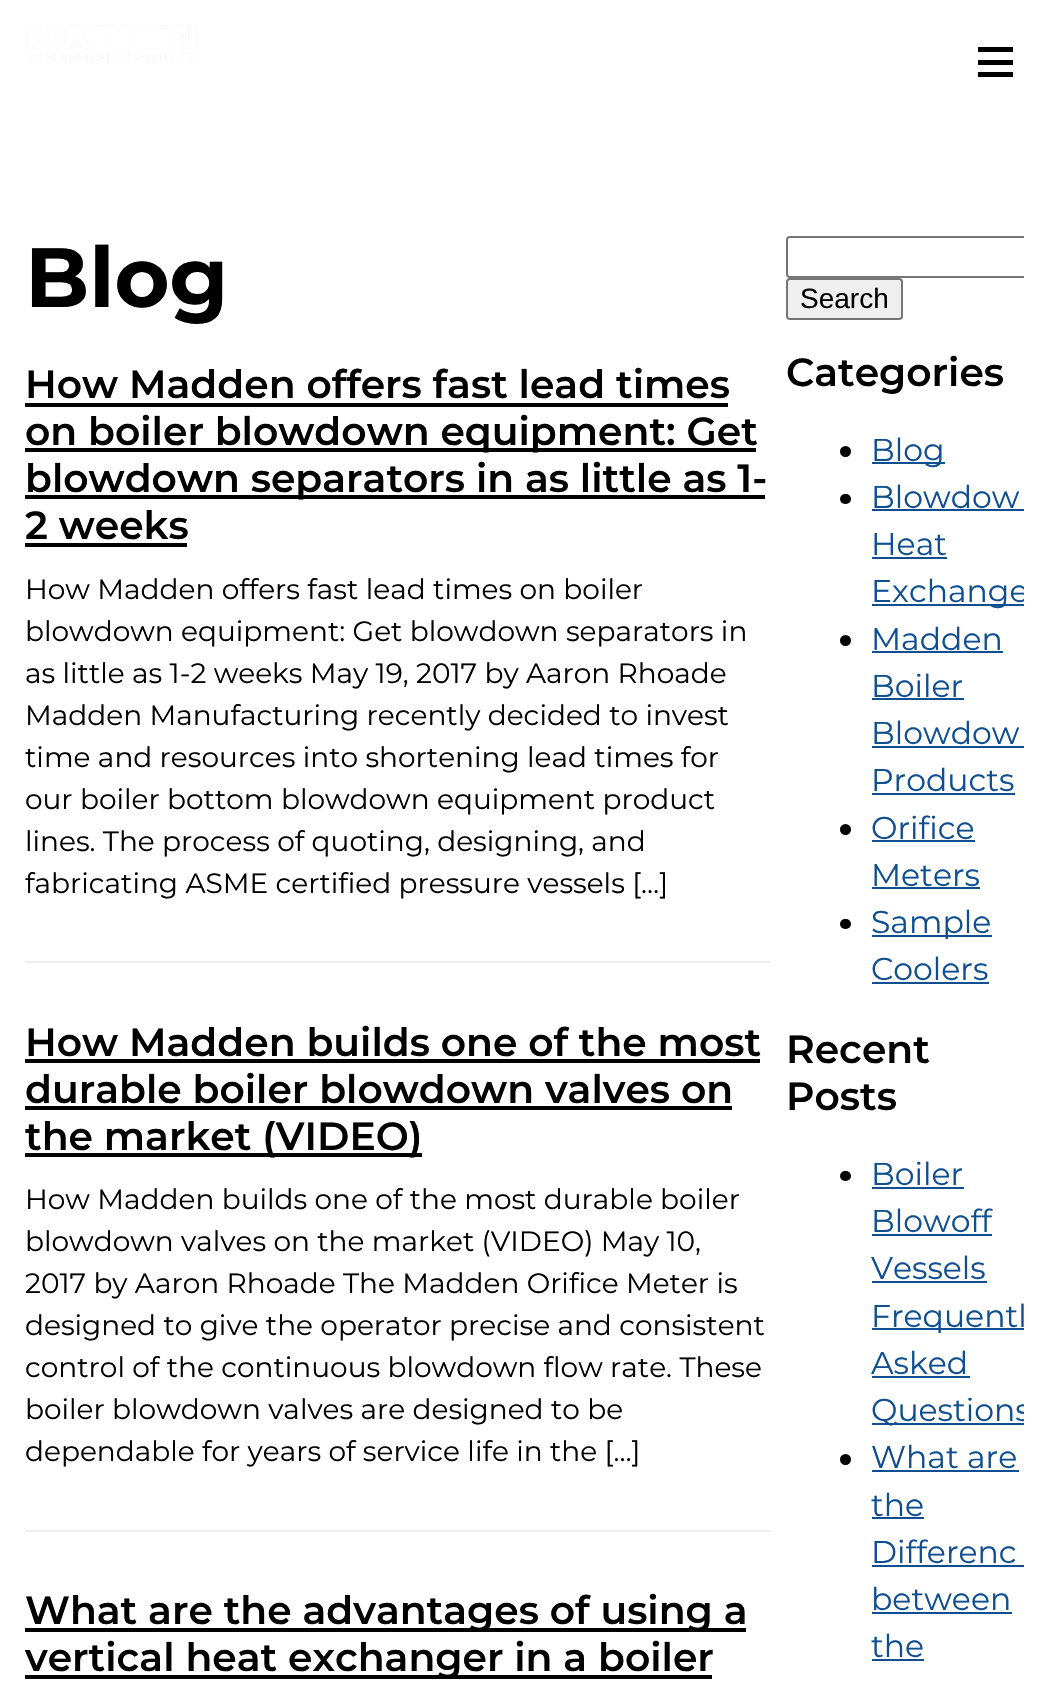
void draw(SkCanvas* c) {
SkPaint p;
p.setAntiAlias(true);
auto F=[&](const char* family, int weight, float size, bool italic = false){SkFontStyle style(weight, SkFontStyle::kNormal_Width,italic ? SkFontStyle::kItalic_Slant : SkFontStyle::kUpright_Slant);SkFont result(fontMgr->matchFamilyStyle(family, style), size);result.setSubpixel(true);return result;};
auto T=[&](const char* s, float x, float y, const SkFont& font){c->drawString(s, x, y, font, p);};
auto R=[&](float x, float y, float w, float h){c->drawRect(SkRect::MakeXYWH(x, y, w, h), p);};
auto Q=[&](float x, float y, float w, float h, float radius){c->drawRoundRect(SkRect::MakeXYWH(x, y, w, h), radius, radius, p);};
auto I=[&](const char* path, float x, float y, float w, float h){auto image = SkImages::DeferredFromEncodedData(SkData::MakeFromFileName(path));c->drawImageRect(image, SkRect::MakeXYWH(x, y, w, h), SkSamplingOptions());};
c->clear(0xffffffff);
I("1.png",26,25,172,37);
p.setColor(0xff000000);
R(978,47,35,5);
R(978,60,35,5);
R(978,72,35,5);
auto f1 = F("Montserrat",700,84);
T("Blog",25,307,f1);
auto f2 = F("Montserrat",600,39.25);
T("How Madden offers fast lead times",25,398,f2);
R(25,403,703,4);
R(25,448,731,4);
T("on boiler blowdown equipment: Get",25,445,f2);
R(25,495,740,4);
T("blowdown separators in as little as 1-",25,492,f2);
T("2 weeks",25,539,f2);
R(25,543,162,4);
auto f3 = F("Montserrat",400,28);
T("How Madden offers fast lead times on boiler",25,599,f3);
T("blowdown equipment: Get blowdown separators in",25,641,f3);
T("as little as 1-2 weeks May 19, 2017 by Aaron Rhoade",25,683,f3);
T("Madden Manufacturing recently decided to invest",25,725,f3);
T("time and resources into shortening lead times for",25,767,f3);
T("our boiler bottom blowdown equipment product",25,809,f3);
T("lines. The process of quoting, designing, and",25,851,f3);
T("fabricating ASME certified pressure vessels […]",25,893,f3);
p.setColor(0xffeeeeee);
R(25,961,745,2);
p.setColor(0xff000000);
T("How Madden builds one of the most",25,1056,f2);
R(25,1059,735,4);
T("durable boiler blowdown valves on",25,1103,f2);
R(25,1106,707,4);
R(25,1153,397,4);
T("the market (VIDEO)",25,1150,f2);
T("How Madden builds one of the most durable boiler",25,1209,f3);
T("blowdown valves on the market (VIDEO) May 10,",25,1251,f3);
T("2017 by Aaron Rhoade The Madden Orifice Meter is",25,1293,f3);
T("designed to give the operator precise and consistent",25,1335,f3);
T("control of the continuous blowdown flow rate. These",25,1377,f3);
T("boiler blowdown valves are designed to be",25,1419,f3);
T("dependable for years of service life in the […]",25,1461,f3);
p.setColor(0xffeeeeee);
R(25,1530,745,2);
p.setColor(0xff000000);
R(25,1628,721,4);
T("What are the advantages of using a",25,1624,f2);
R(25,1675,687,4);
T("vertical heat exchanger in a boiler",25,1671,f2);
c->save();
c->clipRect(SkRect::MakeXYWH(786,236,238,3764));
p.setStroke(true);
p.setStrokeWidth(2);
p.setColor(0xff767676);
c->drawRoundRect(SkRect::MakeXYWH(787,237,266,40),3,3,p);
c->restore();
p.setStroke(false);
p.setColor(0xffefefef);
c->drawRoundRect(SkRect::MakeXYWH(787,279,115,40),3,3,p);
p.setStroke(true);
p.setColor(0xff767676);
c->drawRoundRect(SkRect::MakeXYWH(787,279,115,40),3,3,p);
auto f4 = F("Liberation Sans",400,28);
p.setStroke(false);
p.setColor(0xff000000);
T("Search",800,308,f4);
T("Categories",786,386,f2);
c->drawCircle(845.5,451.5,5.5,p);
p.setColor(0xff0f4f91);
R(872,462,73,2);
auto f5 = F("Montserrat",400,31.5);
T("Blog",871,461,f5);
p.setColor(0xff000000);
Q(840,494,11,10,5);
p.setColor(0xff0f4f91);
T("Blowdow",871,508,f5);
R(872,509,152,2);
T("Heat",871,555,f5);
R(872,557,75,2);
R(872,604,152,2);
c->save();
c->clipRect(SkRect::MakeXYWH(786,236,238,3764));
T("Exchange",871,602,f5);
c->restore();
p.setColor(0xff000000);
c->drawCircle(845.5,640.5,5.5,p);
p.setColor(0xff0f4f91);
T("Madden",871,650,f5);
R(872,651,131,2);
T("Boiler",871,697,f5);
R(872,698,92,2);
T("Blowdow",871,744,f5);
R(872,746,152,2);
T("Products",871,791,f5);
R(872,793,143,2);
p.setColor(0xff000000);
c->drawCircle(845.5,829.5,5.5,p);
p.setColor(0xff0f4f91);
T("Orifice",871,839,f5);
R(872,840,103,2);
T("Meters",871,886,f5);
R(872,887,108,2);
p.setColor(0xff000000);
Q(840,919,11,10,5);
p.setColor(0xff0f4f91);
R(872,935,120,2);
T("Sample",871,933,f5);
T("Coolers",871,980,f5);
R(872,982,117,2);
p.setColor(0xff000000);
T("Recent",786,1063,f2);
T("Posts",786,1110,f2);
Q(840,1171,11,10,5);
p.setColor(0xff0f4f91);
T("Boiler",871,1185,f5);
R(872,1187,92,2);
T("Blowoff",871,1232,f5);
R(872,1234,120,2);
T("Vessels",871,1279,f5);
R(872,1281,115,2);
R(872,1328,152,2);
c->save();
c->clipRect(SkRect::MakeXYWH(786,236,238,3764));
T("Frequentl",871,1327,f5);
c->restore();
T("Asked",871,1374,f5);
R(872,1376,98,2);
R(872,1423,152,2);
c->save();
c->clipRect(SkRect::MakeXYWH(786,236,238,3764));
T("Questions",871,1421,f5);
c->restore();
p.setColor(0xff000000);
c->drawCircle(845.5,1459.5,5.5,p);
p.setColor(0xff0f4f91);
T("What are",871,1468,f5);
R(872,1470,147,2);
T("the",871,1516,f5);
R(872,1517,52,2);
T("Differenc",871,1563,f5);
R(872,1565,152,2);
T("between",871,1610,f5);
R(872,1612,140,2);
T("the",871,1657,f5);
R(872,1659,52,2);
}
